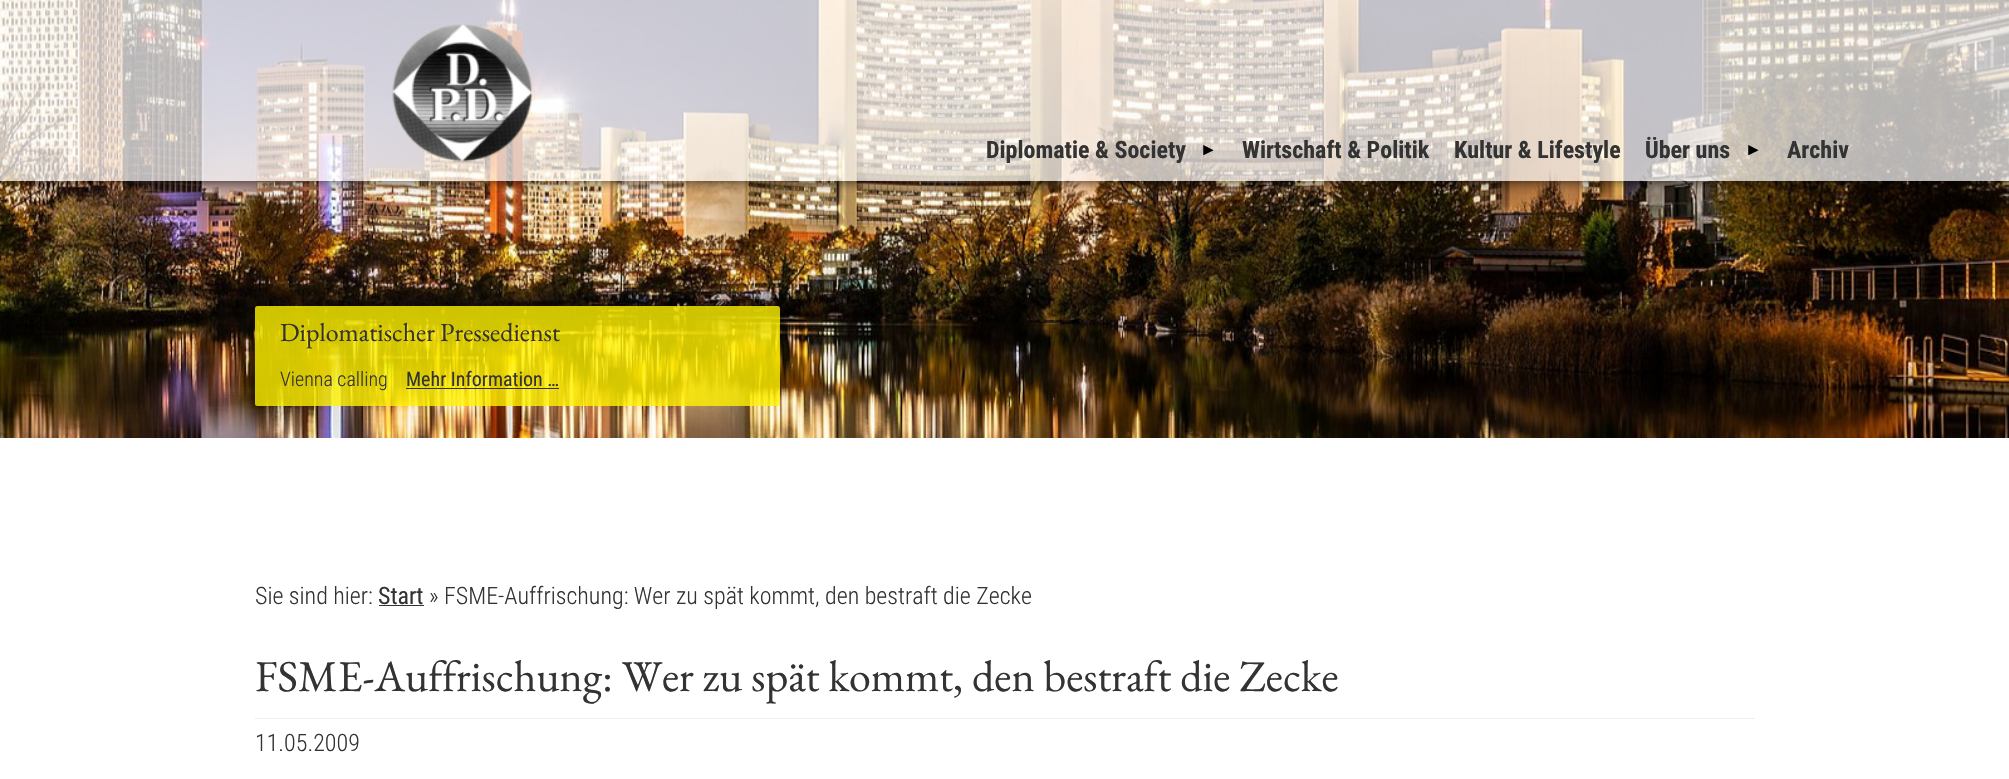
void draw(SkCanvas* c) {
SkPaint p;
p.setAntiAlias(true);
auto F=[&](const char* family, int weight, float size, bool italic = false){SkFontStyle style(weight, SkFontStyle::kNormal_Width,italic ? SkFontStyle::kItalic_Slant : SkFontStyle::kUpright_Slant);SkFont result(fontMgr->matchFamilyStyle(family, style), size);result.setSubpixel(true);return result;};
auto T=[&](const char* s, float x, float y, const SkFont& font){c->drawString(s, x, y, font, p);};
auto R=[&](float x, float y, float w, float h){c->drawRect(SkRect::MakeXYWH(x, y, w, h), p);};
auto Q=[&](float x, float y, float w, float h, float radius){c->drawRoundRect(SkRect::MakeXYWH(x, y, w, h), radius, radius, p);};
auto I=[&](const char* path, float x, float y, float w, float h){auto image = SkImages::DeferredFromEncodedData(SkData::MakeFromFileName(path));c->drawImageRect(image, SkRect::MakeXYWH(x, y, w, h), SkSamplingOptions());};
c->clear(0xffffffff);
I("2.png",0,0,2009,438);
c->save();
c->clipRect(SkRect::MakeXYWH(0,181,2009,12));
p.setColor(0xcc000000);
p.setMaskFilter(SkMaskFilter::MakeBlur(kNormal_SkBlurStyle, 6));
c->drawRect(SkRect::MakeXYWH(0,0,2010,181),p);
p.setMaskFilter(nullptr);
c->restore();
p.setColor(0xb3ffffff);
R(0,0,2009,181);
I("1.png",392,24,141,138);
auto f1 = F("Roboto Condensed",700,24);
p.setColor(0xff333333);
T("Diplomatie & Society",986,158,f1);
auto f2 = F("Liberation Sans",700,17);
p.setColor(0xff000000);
T("►",1200,155,f2);
p.setColor(0xff333333);
T("Wirtschaft & Politik",1242,158,f1);
T("Kultur & Lifestyle",1454,158,f1);
T("Über uns",1645,158,f1);
p.setColor(0xff000000);
T("►",1745,155,f2);
p.setColor(0xff333333);
T("Archiv",1787,158,f1);
p.setColor(0xccfff200);
Q(255,306,525,100,2.5);
auto f3 = F("EB Garamond",400,26);
p.setColor(0xff333333);
T("Diplomatischer Pressedienst",280,341,f3);
auto f4 = F("Roboto Condensed",300,20);
T("Vienna calling",280,386,f4);
auto f5 = F("Roboto Condensed",400,20);
T("Mehr Information …",406,386,f5);
R(406,388,153,1);
auto f6 = F("Roboto Condensed",300,24);
T("Sie sind hier:",255,604,f6);
auto f7 = F("Roboto Condensed",400,24);
T("Start",378,604,f7);
R(379,605,45,1);
T("» FSME-Auffrischung: Wer zu spät kommt, den bestraft die Zecke",429,604,f6);
auto f8 = F("EB Garamond",400,44);
T("FSME-Auffrischung: Wer zu spät kommt, den bestraft die Zecke",255,691,f8);
p.setColor(0xffeeeeee);
R(255,718,1500,1);
p.setColor(0xff333333);
T("11.05.2009",255,751,f6);
}
